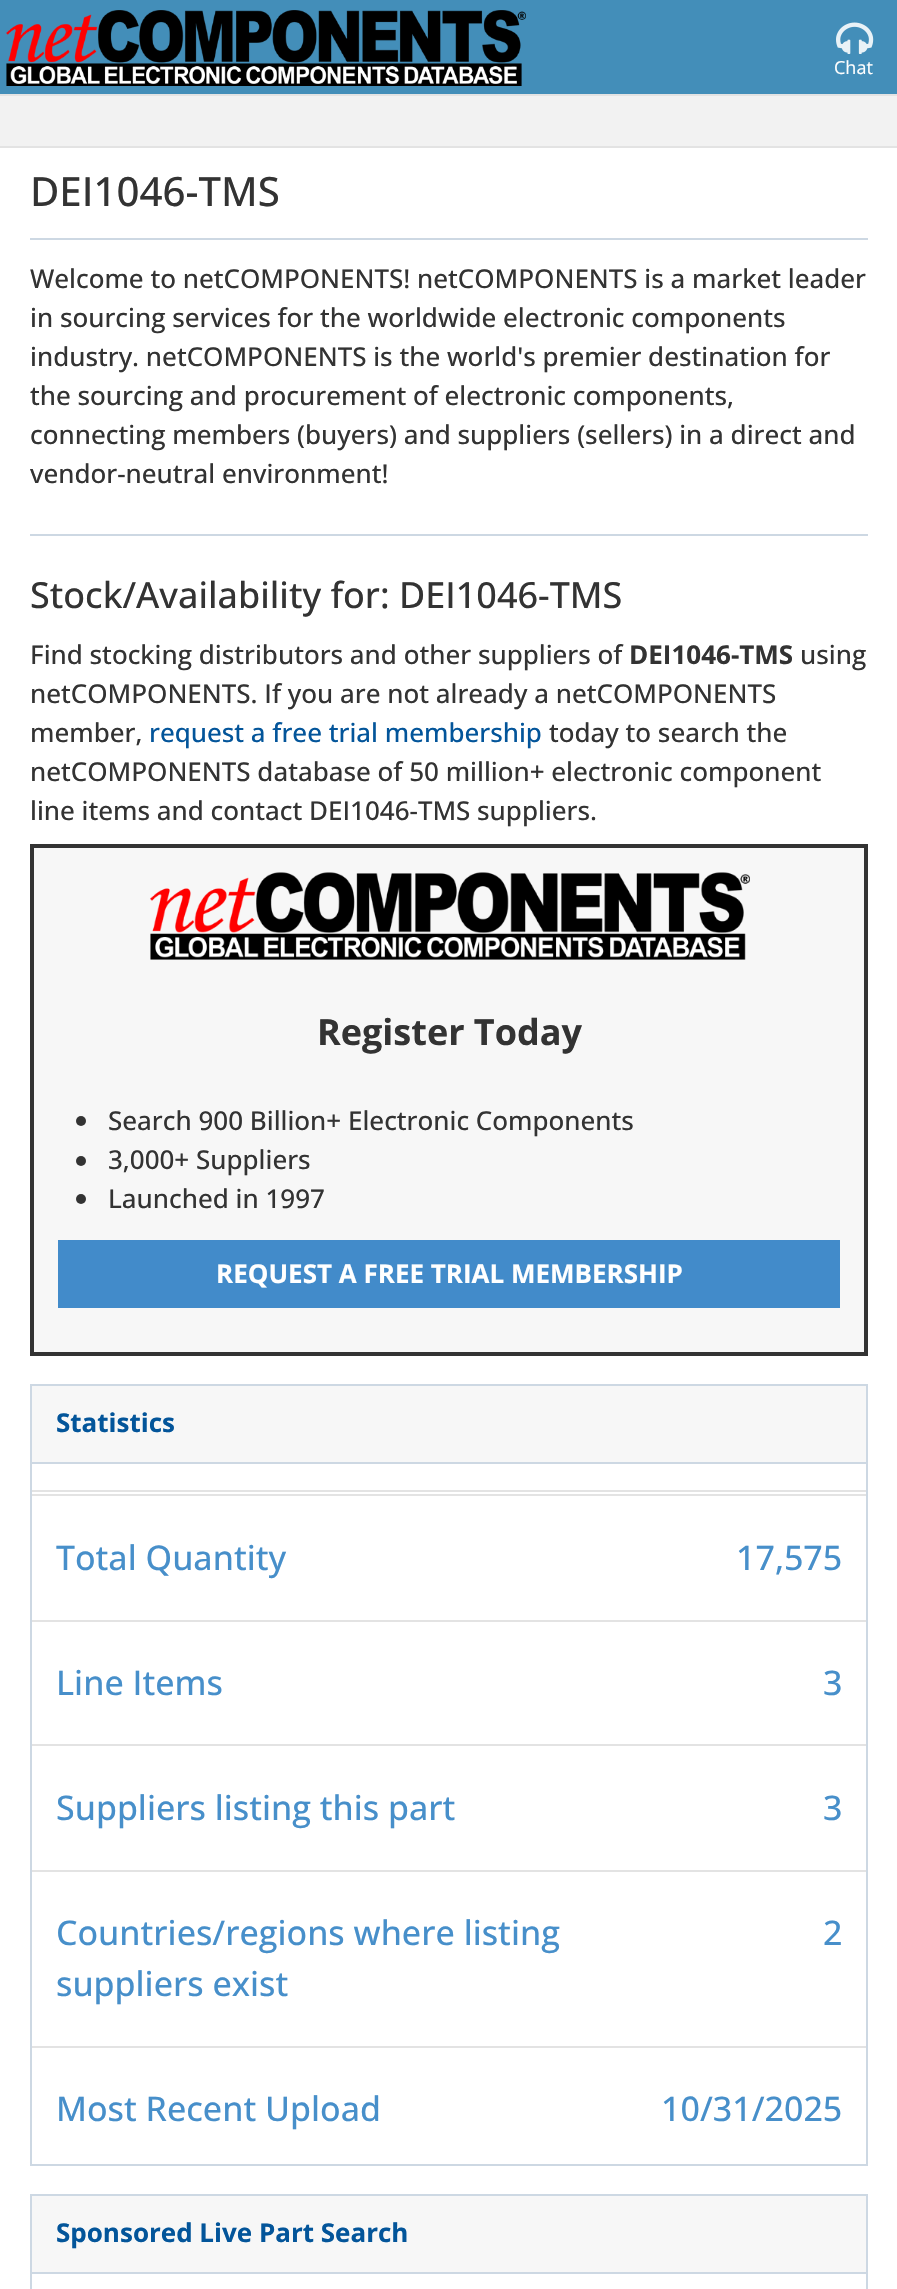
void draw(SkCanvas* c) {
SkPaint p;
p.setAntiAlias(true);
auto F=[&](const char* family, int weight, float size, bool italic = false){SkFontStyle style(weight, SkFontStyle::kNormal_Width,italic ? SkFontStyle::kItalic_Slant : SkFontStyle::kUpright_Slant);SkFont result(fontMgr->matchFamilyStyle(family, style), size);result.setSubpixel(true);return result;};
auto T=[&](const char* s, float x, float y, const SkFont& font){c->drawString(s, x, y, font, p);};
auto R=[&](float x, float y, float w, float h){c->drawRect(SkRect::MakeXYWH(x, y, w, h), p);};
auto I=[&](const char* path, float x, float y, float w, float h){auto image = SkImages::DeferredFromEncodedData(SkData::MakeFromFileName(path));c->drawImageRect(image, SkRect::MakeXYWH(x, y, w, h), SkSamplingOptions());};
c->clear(0xffffffff);
p.setColor(0xff438eb9);
R(0,0,897,94);
I("1.png",6,10,520,76);
I("2.png",836,22,38,32);
auto f1 = F("Open Sans",400,18);
p.setColor(0xffffffff);
T("Chat",834,74,f1);
p.setColor(0xfff2f2f2);
R(0,96,897,50);
p.setColor(0xffe3e3e3);
R(0,94,897,2);
R(0,146,897,2);
p.setColor(0xffcdd8e3);
R(30,238,838,2);
auto f2 = F("Open Sans",500,40.25);
p.setColor(0xff333333);
T("DEI1046-TMS",30,206,f2);
auto f3 = F("Open Sans",500,26);
T("Welcome to netCOMPONENTS! netCOMPONENTS is a market leader",30,288,f3);
T("in sourcing services for the worldwide electronic components",30,327,f3);
T("industry. netCOMPONENTS is the world's premier destination for",30,366,f3);
T("the sourcing and procurement of electronic components,",30,405,f3);
T("connecting members (buyers) and suppliers (sellers) in a direct and",30,444,f3);
T("vendor-neutral environment!",30,483,f3);
p.setColor(0xffcdd8e3);
R(30,534,838,2);
auto f4 = F("Open Sans",500,36);
p.setColor(0xff333333);
T("Stock/Availability for: DEI1046-TMS",30,608,f4);
T("Find stocking distributors and other suppliers of",30,664,f3);
auto f5 = F("Open Sans",700,26);
T("DEI1046-TMS",629,664,f5);
T("using",800,664,f3);
T("netCOMPONENTS. If you are not already a netCOMPONENTS",30,703,f3);
T("member,",30,742,f3);
p.setColor(0xff03559a);
T("request a free trial membership",149,742,f3);
p.setColor(0xff333333);
T("today to search the",549,742,f3);
T("netCOMPONENTS database of 50 million+ electronic component",30,781,f3);
T("line items and contact DEI1046-TMS suppliers.",30,820,f3);
p.setColor(0xfff7f7f7);
c->drawRect(SkRect::MakeXYWH(32,846,834,508),p);
p.setStroke(true);
p.setStrokeWidth(4);
p.setColor(0xff333333);
c->drawRect(SkRect::MakeXYWH(32,846,834,508),p);
I("3.png",150,872,600,88);
auto f6 = F("Open Sans",700,36);
p.setStroke(false);
T("Register Today",317,1045,f6);
c->drawCircle(81,1121,5,p);
T("Search 900 Billion+ Electronic Components",108,1130,f3);
c->drawCircle(81,1161,5,p);
T("3,000+ Suppliers",108,1169,f3);
c->drawCircle(81,1199,5,p);
T("Launched in 1997",108,1208,f3);
p.setColor(0xff428bca);
R(58,1240,782,68);
p.setColor(0xffffffff);
T("REQUEST A FREE TRIAL MEMBERSHIP",216,1283,f5);
p.setStroke(true);
p.setStrokeWidth(2);
p.setColor(0xffcdd8e3);
c->drawRect(SkRect::MakeXYWH(31,1385,836,780),p);
p.setStroke(false);
p.setColor(0xfff7f7f7);
R(32,1386,834,76);
p.setColor(0xffcdd8e3);
R(32,1462,834,2);
p.setColor(0xff03559a);
T("Statistics",56,1432,f5);
p.setColor(0xffe3e3e3);
R(32,1490,834,2);
R(32,1494,834,2);
auto f7 = F("Open Sans",500,34);
p.setColor(0xff478fca);
T("Total Quantity",56,1570,f7);
T("17,575",736,1570,f7);
p.setColor(0xffe3e3e3);
R(32,1620,834,2);
p.setColor(0xff478fca);
T("Line Items",56,1695,f7);
T("3",823,1695,f7);
p.setColor(0xffe3e3e3);
R(32,1744,834,2);
p.setColor(0xff478fca);
T("Suppliers listing this part",56,1820,f7);
T("3",823,1820,f7);
p.setColor(0xffe3e3e3);
R(32,1870,834,2);
p.setColor(0xff478fca);
T("Countries/regions where listing",56,1945,f7);
T("suppliers exist",56,1996,f7);
T("2",823,1945,f7);
p.setColor(0xffe3e3e3);
R(32,2046,834,2);
p.setColor(0xff478fca);
T("Most Recent Upload",56,2121,f7);
T("10/31/2025",661,2121,f7);
p.setStroke(true);
p.setColor(0xffcdd8e3);
c->drawRect(SkRect::MakeXYWH(31,2195,836,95),p);
p.setStroke(false);
p.setColor(0xfff7f7f7);
R(32,2196,834,76);
p.setColor(0xffcdd8e3);
R(32,2272,834,2);
p.setColor(0xff03559a);
T("Sponsored Live Part Search",56,2242,f5);
}
